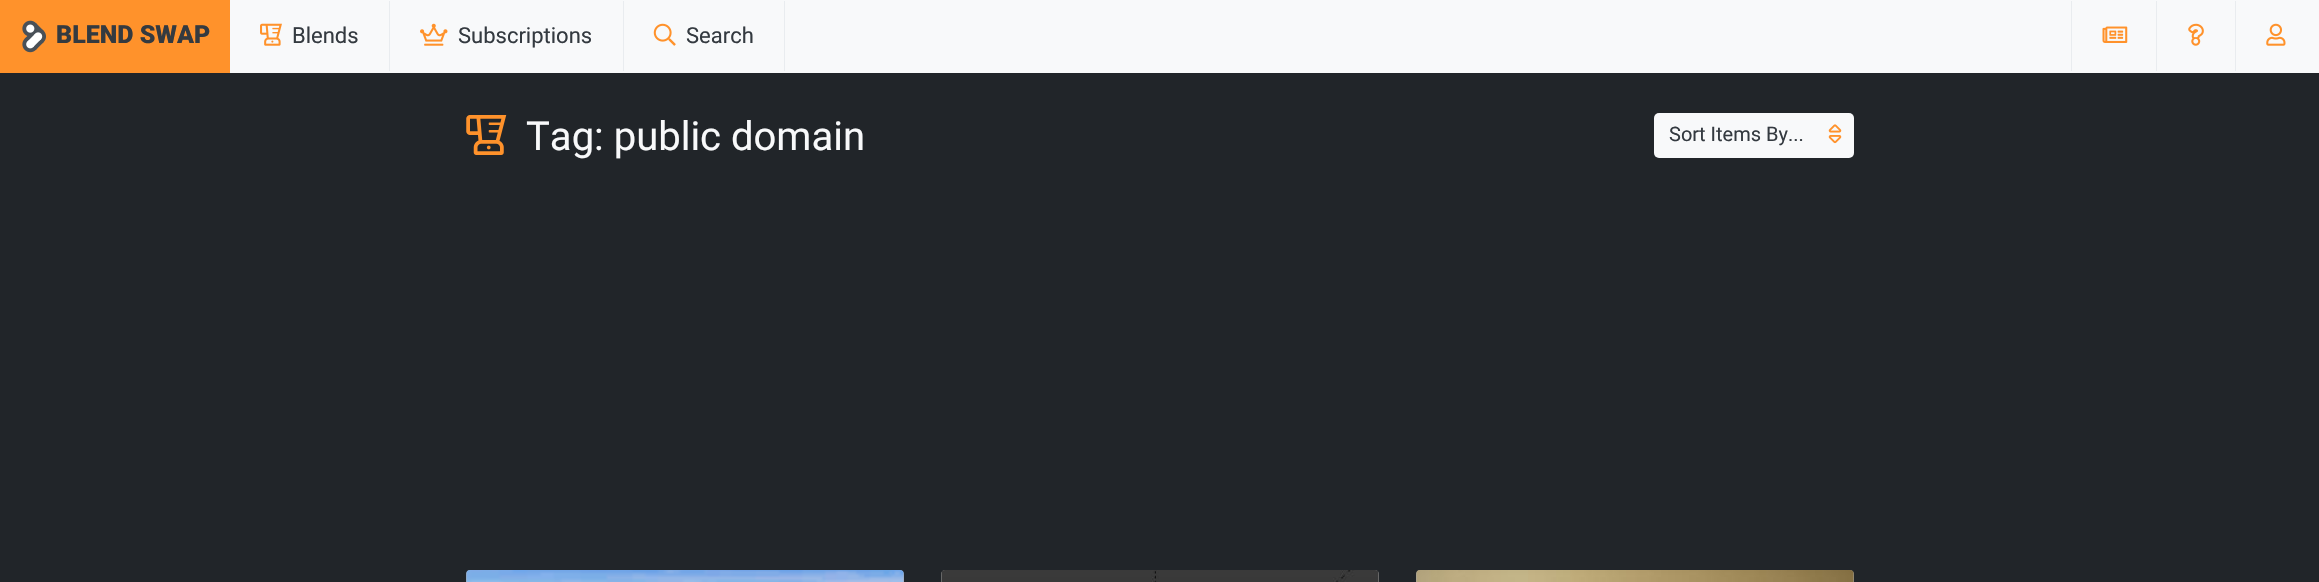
void draw(SkCanvas* c) {
SkPaint p;
p.setAntiAlias(true);
auto F=[&](const char* family, int weight, float size, bool italic = false){SkFontStyle style(weight, SkFontStyle::kNormal_Width,italic ? SkFontStyle::kItalic_Slant : SkFontStyle::kUpright_Slant);SkFont result(fontMgr->matchFamilyStyle(family, style), size);result.setSubpixel(true);return result;};
auto T=[&](const char* s, float x, float y, const SkFont& font){c->drawString(s, x, y, font, p);};
auto R=[&](float x, float y, float w, float h){c->drawRect(SkRect::MakeXYWH(x, y, w, h), p);};
auto Q=[&](float x, float y, float w, float h, float radius){c->drawRoundRect(SkRect::MakeXYWH(x, y, w, h), radius, radius, p);};
auto I=[&](const char* path, float x, float y, float w, float h){auto image = SkImages::DeferredFromEncodedData(SkData::MakeFromFileName(path));c->drawImageRect(image, SkRect::MakeXYWH(x, y, w, h), SkSamplingOptions());};
auto P=[&](const char* data, bool evenOdd = false){SkPath result = *SkParsePath::FromSVGString(data);if (evenOdd) result.setFillType(SkPathFillType::kEvenOdd);return result;};
c->clear(0xff212529);
p.setColor(0xfff8f9fa);
R(230,0,2089,73);
p.setColor(0xffff922b);
R(0,0,230,73);
I("1.png",22,20,24,33);
auto f1 = F("Roboto",900,25);
p.setColor(0xff343a40);
T("BLEND SWAP",56,43,f1);
p.setColor(0xffe9ecef);
R(389,1,1,70);
I("2.png",260,23,22,23);
auto f2 = F("Roboto",400,22);
p.setColor(0xff343a40);
T("Blends",292,43,f2);
p.setColor(0xffe9ecef);
R(623,1,1,70);
I("3.png",420,23,28,23);
p.setColor(0xff343a40);
T("Subscriptions",458,43,f2);
p.setColor(0xffe9ecef);
R(784,1,1,70);
I("4.png",653,23,23,23);
p.setColor(0xff343a40);
T("Search",686,43,f2);
p.setColor(0xffe9ecef);
R(2071,1,1,70);
I("5.png",2102,26,26,17);
R(2156,1,1,70);
I("6.png",2188,23,16,23);
R(2235,1,1,70);
I("7.png",2266,23,20,23);
I("8.png",466,115,41,40);
auto f3 = F("Roboto",400,40);
p.setColor(0xfff8f9fa);
T("Tag: public domain",526,150,f3);
Q(1654,113,200,45,5);
auto f4 = F("Roboto",400,20);
p.setColor(0xff343a40);
T("Sort Items By...",1669,141,f4);
I("9.png",1828,124,14,20);
p.setColor(0xfff8f9fa);
Q(466,570,438,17,5);
p.setColor(0x40808080);
c->drawPath(P("M470 570h430c2 0 4 2 4 4v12h-438v-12c0-2 2-4 4-4z"),p);
c->drawPath(P("M470 570h430c2 0 4 2 4 4v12h-438v-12c0-2 2-4 4-4z"),p);
c->drawPath(P("M470 570h430c2 0 4 2 4 4v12h-438v-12c0-2 2-4 4-4z"),p);
c->drawPath(P("M470 570h430c2 0 4 2 4 4v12h-438v-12c0-2 2-4 4-4z"),p);
I("10.png",466,570,438,12);
p.setColor(0xfff8f9fa);
Q(941,570,438,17,5);
p.setColor(0x40808080);
c->drawPath(P("M945 570h430c2 0 4 2 4 4v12h-438v-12c0-2 2-4 4-4z"),p);
c->drawPath(P("M945 570h430c2 0 4 2 4 4v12h-438v-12c0-2 2-4 4-4z"),p);
c->drawPath(P("M945 570h430c2 0 4 2 4 4v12h-438v-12c0-2 2-4 4-4z"),p);
c->drawPath(P("M945 570h430c2 0 4 2 4 4v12h-438v-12c0-2 2-4 4-4z"),p);
I("11.png",941,570,438,12);
p.setColor(0xfff8f9fa);
Q(1416,570,438,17,5);
p.setColor(0x40808080);
c->drawPath(P("M1420 570h430c2 0 4 2 4 4v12h-438v-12c0-2 2-4 4-4z"),p);
c->drawPath(P("M1420 570h430c2 0 4 2 4 4v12h-438v-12c0-2 2-4 4-4z"),p);
c->drawPath(P("M1420 570h430c2 0 4 2 4 4v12h-438v-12c0-2 2-4 4-4z"),p);
c->drawPath(P("M1420 570h430c2 0 4 2 4 4v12h-438v-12c0-2 2-4 4-4z"),p);
I("12.png",1416,570,438,12);
}
